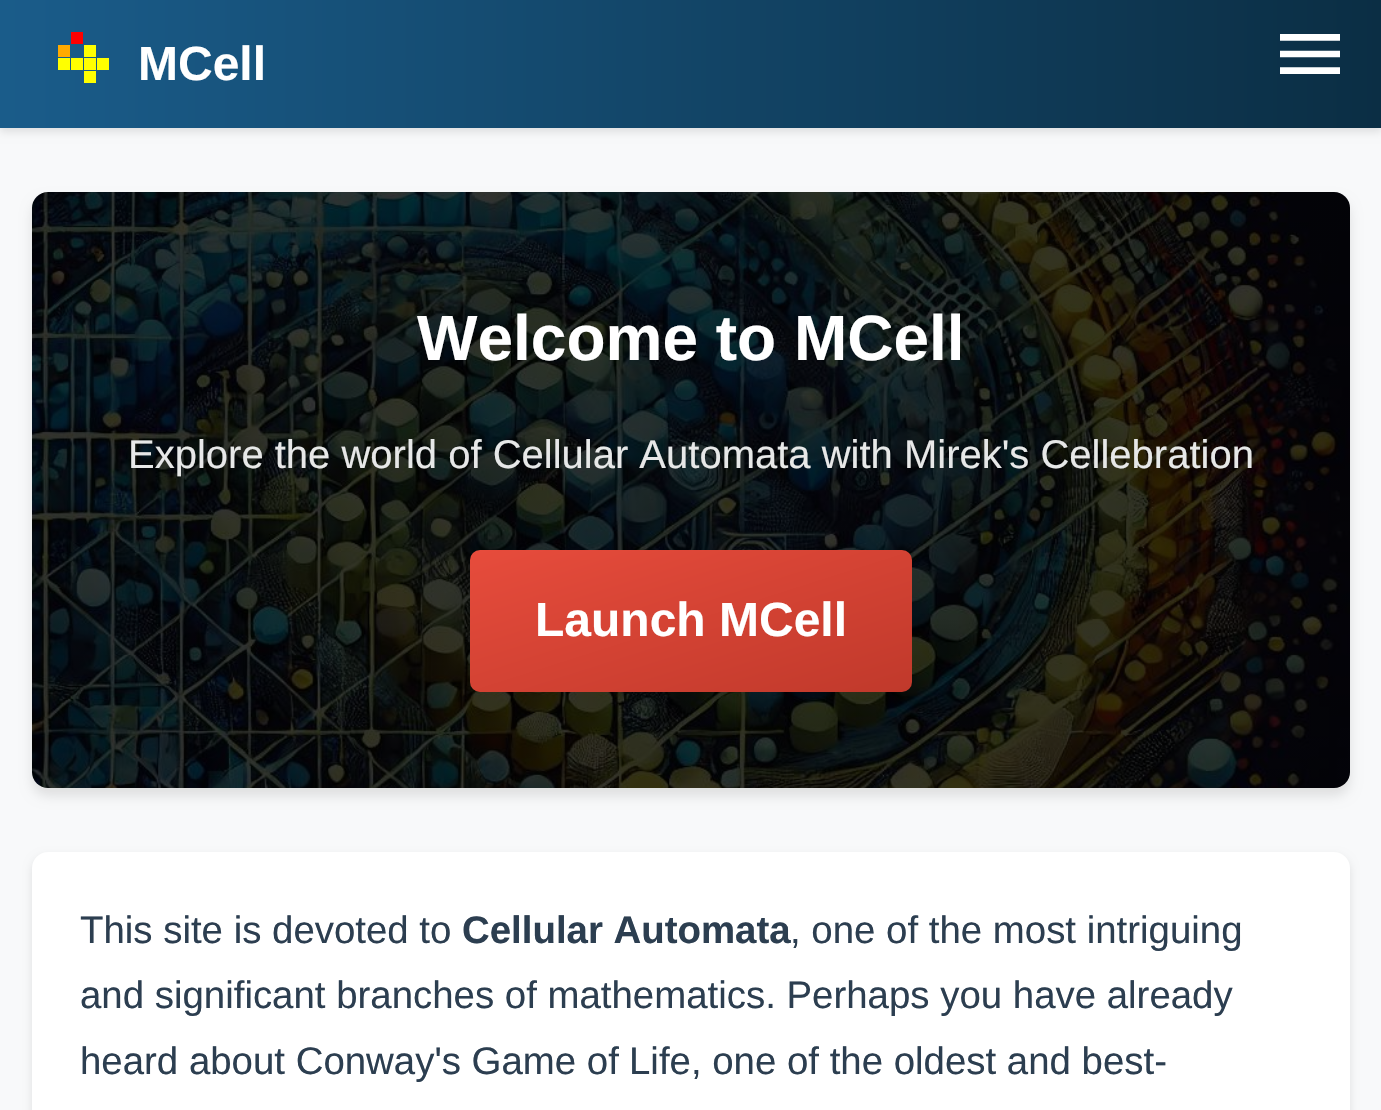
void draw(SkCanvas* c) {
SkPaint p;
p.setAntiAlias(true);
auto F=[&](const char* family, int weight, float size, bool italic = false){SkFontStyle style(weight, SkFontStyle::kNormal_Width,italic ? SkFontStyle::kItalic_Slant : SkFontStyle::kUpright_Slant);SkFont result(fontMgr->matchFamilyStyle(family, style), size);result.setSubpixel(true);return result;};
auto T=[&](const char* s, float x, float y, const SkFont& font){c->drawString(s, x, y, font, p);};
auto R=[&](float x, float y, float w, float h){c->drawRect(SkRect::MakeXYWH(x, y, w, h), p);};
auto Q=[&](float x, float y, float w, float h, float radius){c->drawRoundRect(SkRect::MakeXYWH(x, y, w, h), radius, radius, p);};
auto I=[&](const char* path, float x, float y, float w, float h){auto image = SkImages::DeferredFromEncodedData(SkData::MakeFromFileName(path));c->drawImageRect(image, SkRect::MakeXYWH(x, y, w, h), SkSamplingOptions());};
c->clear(0xfff8f9fa);
p.setColor(0x1a000000);
p.setMaskFilter(SkMaskFilter::MakeBlur(kNormal_SkBlurStyle, 4));
c->drawRect(SkRect::MakeXYWH(0,4,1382,128),p);
p.setMaskFilter(nullptr);
{
const SkColor colors[] = {0xff1a5c8a,0xff0b2e44};
const float stops[] = {0,1};
const SkPoint ends[] = {{0,64}, {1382,64}};
p.setShader(SkGradientShader::MakeLinear(ends, colors, stops, 2, SkTileMode::kClamp));
p.setAlpha(255);
}
R(0,0,1381,128);
I("1.png",58,32,51,51);
auto f1 = F("Liberation Sans",700,48);
p.setShader(nullptr);
p.setColor(0xffffffff);
T("MCell",138,80,f1);
I("2.png",1280,34,60,40);
p.setColor(0x1a000000);
p.setMaskFilter(SkMaskFilter::MakeBlur(kNormal_SkBlurStyle, 6));
c->drawRoundRect(SkRect::MakeXYWH(32,200,1318,596),16,16,p);
p.setMaskFilter(nullptr);
I("3.png",32,192,1318,596);
auto f2 = F("Liberation Sans",700,64);
p.setColor(0xffffffff);
T("Welcome to MCell",417,360,f2);
auto f3 = F("Liberation Sans",400,40);
p.setColor(0xffe7e8e8);
T("Explore the world of Cellular Automata with Mirek's Cellebration",128,468,f3);
{
const SkColor colors[] = {0xffe74c3c,0xffc0392b};
const float stops[] = {0,1};
const SkPoint ends[] = {{650,492}, {732,750}};
p.setShader(SkGradientShader::MakeLinear(ends, colors, stops, 2, SkTileMode::kClamp));
p.setAlpha(255);
}
Q(470,550,442,142,10);
p.setShader(nullptr);
p.setColor(0xffffffff);
T("Launch MCell",535,636,f1);
p.setColor(0x1a000000);
p.setMaskFilter(SkMaskFilter::MakeBlur(kNormal_SkBlurStyle, 4));
c->drawRoundRect(SkRect::MakeXYWH(32,856,1318,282),16,16,p);
p.setMaskFilter(nullptr);
p.setColor(0xffffffff);
Q(32,852,1318,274,16);
auto f4 = F("Liberation Sans",400,38.4);
p.setColor(0xff2c3e50);
T("This site is devoted to",80,943,f4);
auto f5 = F("Liberation Sans",700,38.4);
T("Cellular Automata",462,943,f5);
T(", one of the most intriguing",790,943,f4);
T("and significant branches of mathematics. Perhaps you have already",80,1008,f4);
T("heard about Conway's Game of",80,1074,f4);
T("Life, one of the oldest and best-",629,1074,f4);
}
